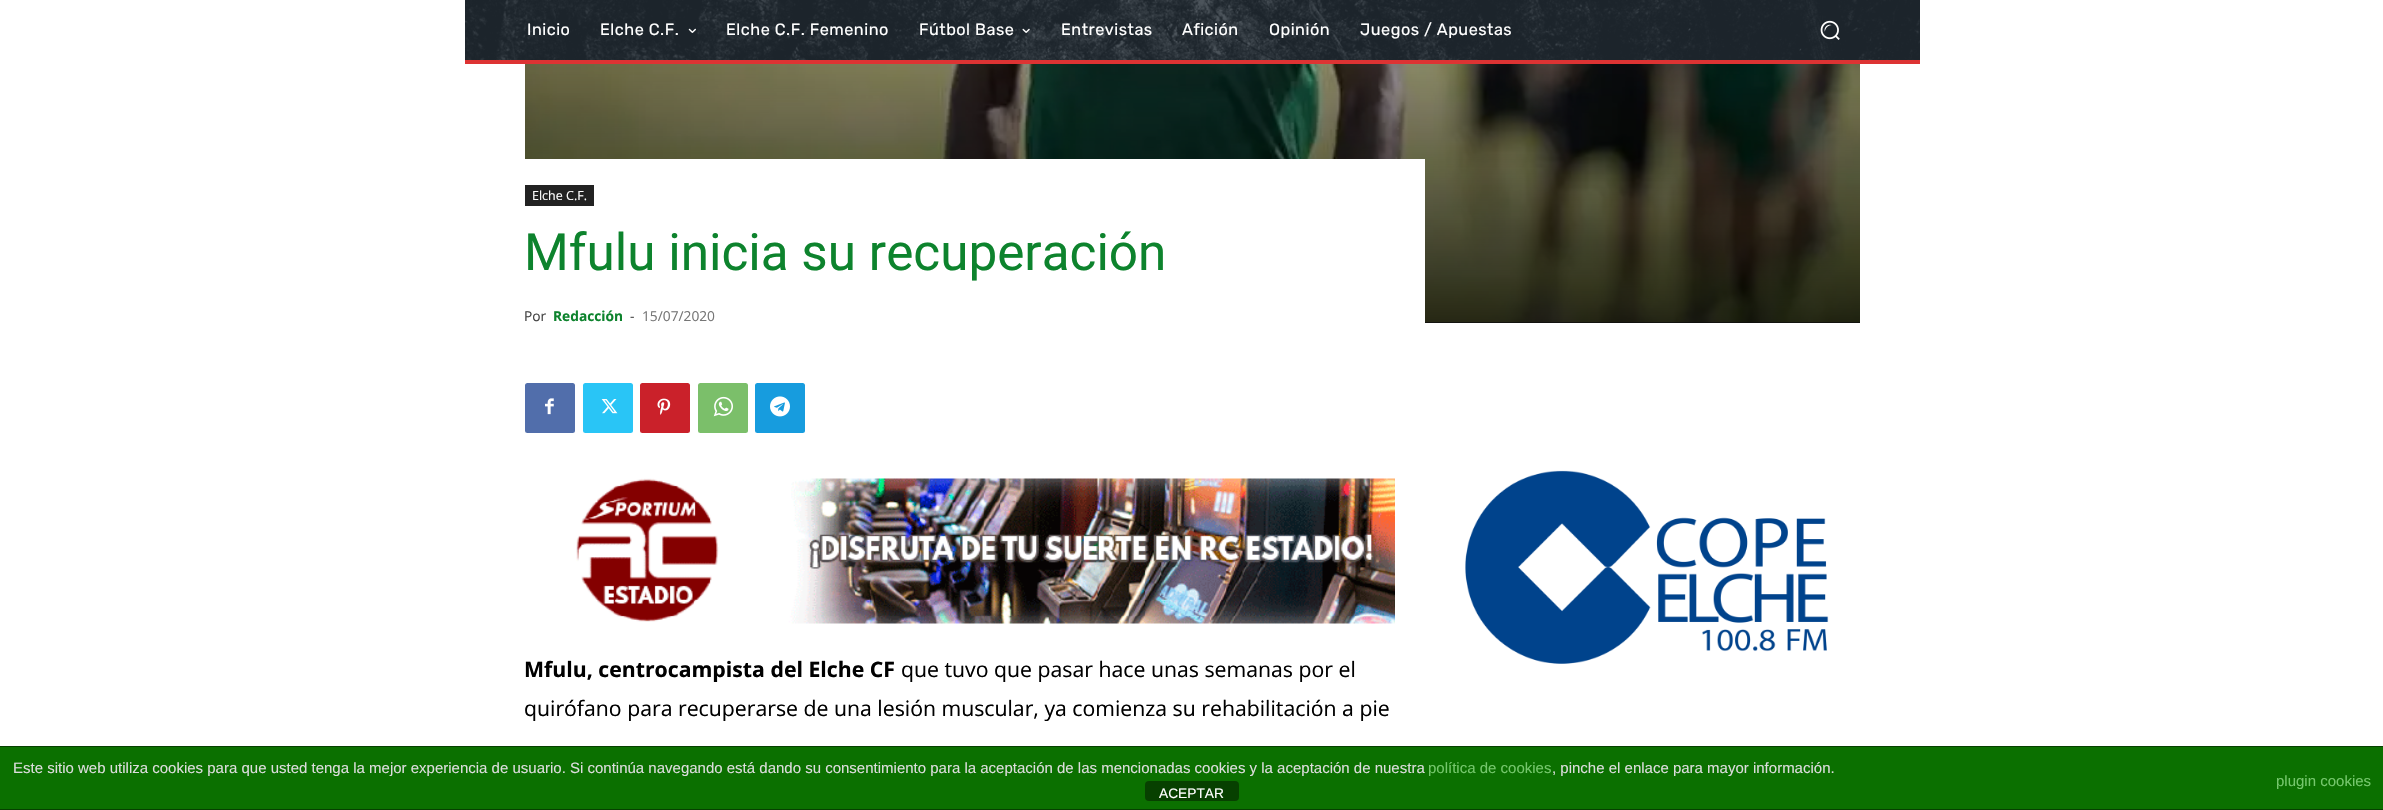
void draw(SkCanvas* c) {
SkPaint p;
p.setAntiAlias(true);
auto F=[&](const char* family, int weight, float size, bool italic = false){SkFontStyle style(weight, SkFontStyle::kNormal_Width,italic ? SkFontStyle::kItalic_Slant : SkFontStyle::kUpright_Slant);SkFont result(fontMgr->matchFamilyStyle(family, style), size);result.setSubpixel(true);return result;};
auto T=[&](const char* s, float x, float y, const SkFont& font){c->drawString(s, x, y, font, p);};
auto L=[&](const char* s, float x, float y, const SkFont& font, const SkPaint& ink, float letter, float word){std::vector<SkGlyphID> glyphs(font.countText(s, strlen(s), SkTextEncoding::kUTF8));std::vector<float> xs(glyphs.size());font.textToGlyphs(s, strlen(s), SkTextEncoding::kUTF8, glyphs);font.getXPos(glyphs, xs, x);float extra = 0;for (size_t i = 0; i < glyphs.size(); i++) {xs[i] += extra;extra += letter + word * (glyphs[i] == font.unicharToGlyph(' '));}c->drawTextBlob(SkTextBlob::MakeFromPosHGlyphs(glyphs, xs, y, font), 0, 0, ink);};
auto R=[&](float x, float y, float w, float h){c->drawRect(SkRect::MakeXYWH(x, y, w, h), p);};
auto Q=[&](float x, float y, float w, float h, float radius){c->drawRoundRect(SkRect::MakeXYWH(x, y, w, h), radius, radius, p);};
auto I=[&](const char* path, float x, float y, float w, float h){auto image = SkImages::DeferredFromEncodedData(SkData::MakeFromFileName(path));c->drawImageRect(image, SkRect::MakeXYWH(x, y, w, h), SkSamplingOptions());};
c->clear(0xffffffff);
p.setColor(0xff232d35);
R(465,0,1455,60);
I("1.png",465,0,1455,60);
auto f1 = F("Rubik",400,16.25);
p.setColor(0xffffffff);
L("Inicio",527,35,f1,p,.5,0);
L("Elche C.F.",600,35,f1,p,.5,0);
I("2.png",688,28,8,5);
L("Elche C.F. Femenino",726,35,f1,p,.5,0);
L("Fútbol Base",919,35,f1,p,.5,0);
I("3.png",1022,28,8,5);
L("Entrevistas",1061,35,f1,p,.5,0);
L("Afición",1182,35,f1,p,.5,0);
L("Opinión",1269,35,f1,p,.5,0);
L("Juegos / Apuestas",1360,35,f1,p,.5,0);
I("4.png",1820,20,20,20);
p.setColor(0xffdd3333);
R(465,60,1455,4);
p.setColor(0xff444444);
R(1425,322,435,1);
I("5.png",525,64,1335,259);
{
const SkColor colors[] = {0x00000000,0xcc000000};
const float stops[] = {0,1};
const SkPoint ends[] = {{1193,-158}, {1193,323}};
p.setShader(SkGradientShader::MakeLinear(ends, colors, stops, 2, SkTileMode::kClamp));
p.setAlpha(255);
}
R(525,64,1335,259);
p.setShader(nullptr);
p.setColor(0xffffffff);
R(525,159,900,164);
p.setColor(0xff222222);
R(525,185,69,21);
auto f2 = F("Open Sans",400,12.5);
p.setColor(0xffffffff);
T("Elche C.F.",532,200,f2);
auto f3 = F("Roboto",400,51.25);
p.setColor(0xff0d832d);
T("Mfulu inicia su recuperación",524,270,f3);
auto f4 = F("Open Sans",400,13.75);
p.setColor(0xff444444);
T("Por",524,321,f4);
auto f5 = F("Open Sans",700,13.75);
p.setColor(0xff0d832d);
T("Redacción",553,321,f5);
p.setColor(0xff444444);
T("-",630,321,f4);
p.setColor(0xff767676);
T("15/07/2020",642,321,f4);
I("6.png",1465,470,364,194);
p.setColor(0xff516eab);
Q(525,383,50,50,2.5);
I("7.png",545,398,9,17);
p.setColor(0xff29c5f6);
Q(583,383,50,50,2.5);
I("8.png",601,399,17,15);
p.setColor(0xffca212a);
Q(640,383,50,50,2.5);
I("9.png",657,398,14,17);
p.setColor(0xff7bbf6a);
Q(698,383,50,50,2.5);
I("10.png",713,396,20,21);
p.setColor(0xff179cde);
Q(755,383,50,50,2.5);
I("11.png",770,396,20,21);
I("12.png",576,478,819,146);
auto f6 = F("Open Sans",700,21.25);
p.setColor(0xff000000);
T("Mfulu, centrocampista del Elche CF",524,677,f6);
auto f7 = F("Open Sans",400,21.25);
T("que tuvo que pasar hace unas semanas por el",901,677,f7);
T("quirófano para recuperarse de una lesión muscular, ya comienza su rehabilitación a pie",524,716,f7);
p.setColor(0xff0b7000);
R(0,747,2383,62);
p.setColor(0xff064000);
R(0,746,2383,1);
R(0,809,2383,1);
auto f8 = F("Liberation Sans",400,15);
p.setColor(0xffdddddd);
T("Este sitio web utiliza cookies para que usted tenga la mejor experiencia de usuario. Si continúa navegando está dando su consentimiento para la aceptación de las mencionadas cookies y la aceptación de nuestra",13,773,f8);
p.setColor(0xff75c76c);
T("política de cookies",1428,773,f8);
p.setColor(0xffdddddd);
T(", pinche el enlace para mayor información.",1552,773,f8);
p.setColor(0xff75c76c);
T("plugin cookies",2276,786,f8);
p.setColor(0xff074000);
Q(1145,781,94,20,4);
auto f9 = F("Liberation Sans",400,13.75);
p.setColor(0xffffffff);
T("ACEPTAR",1159,798,f9);
}
